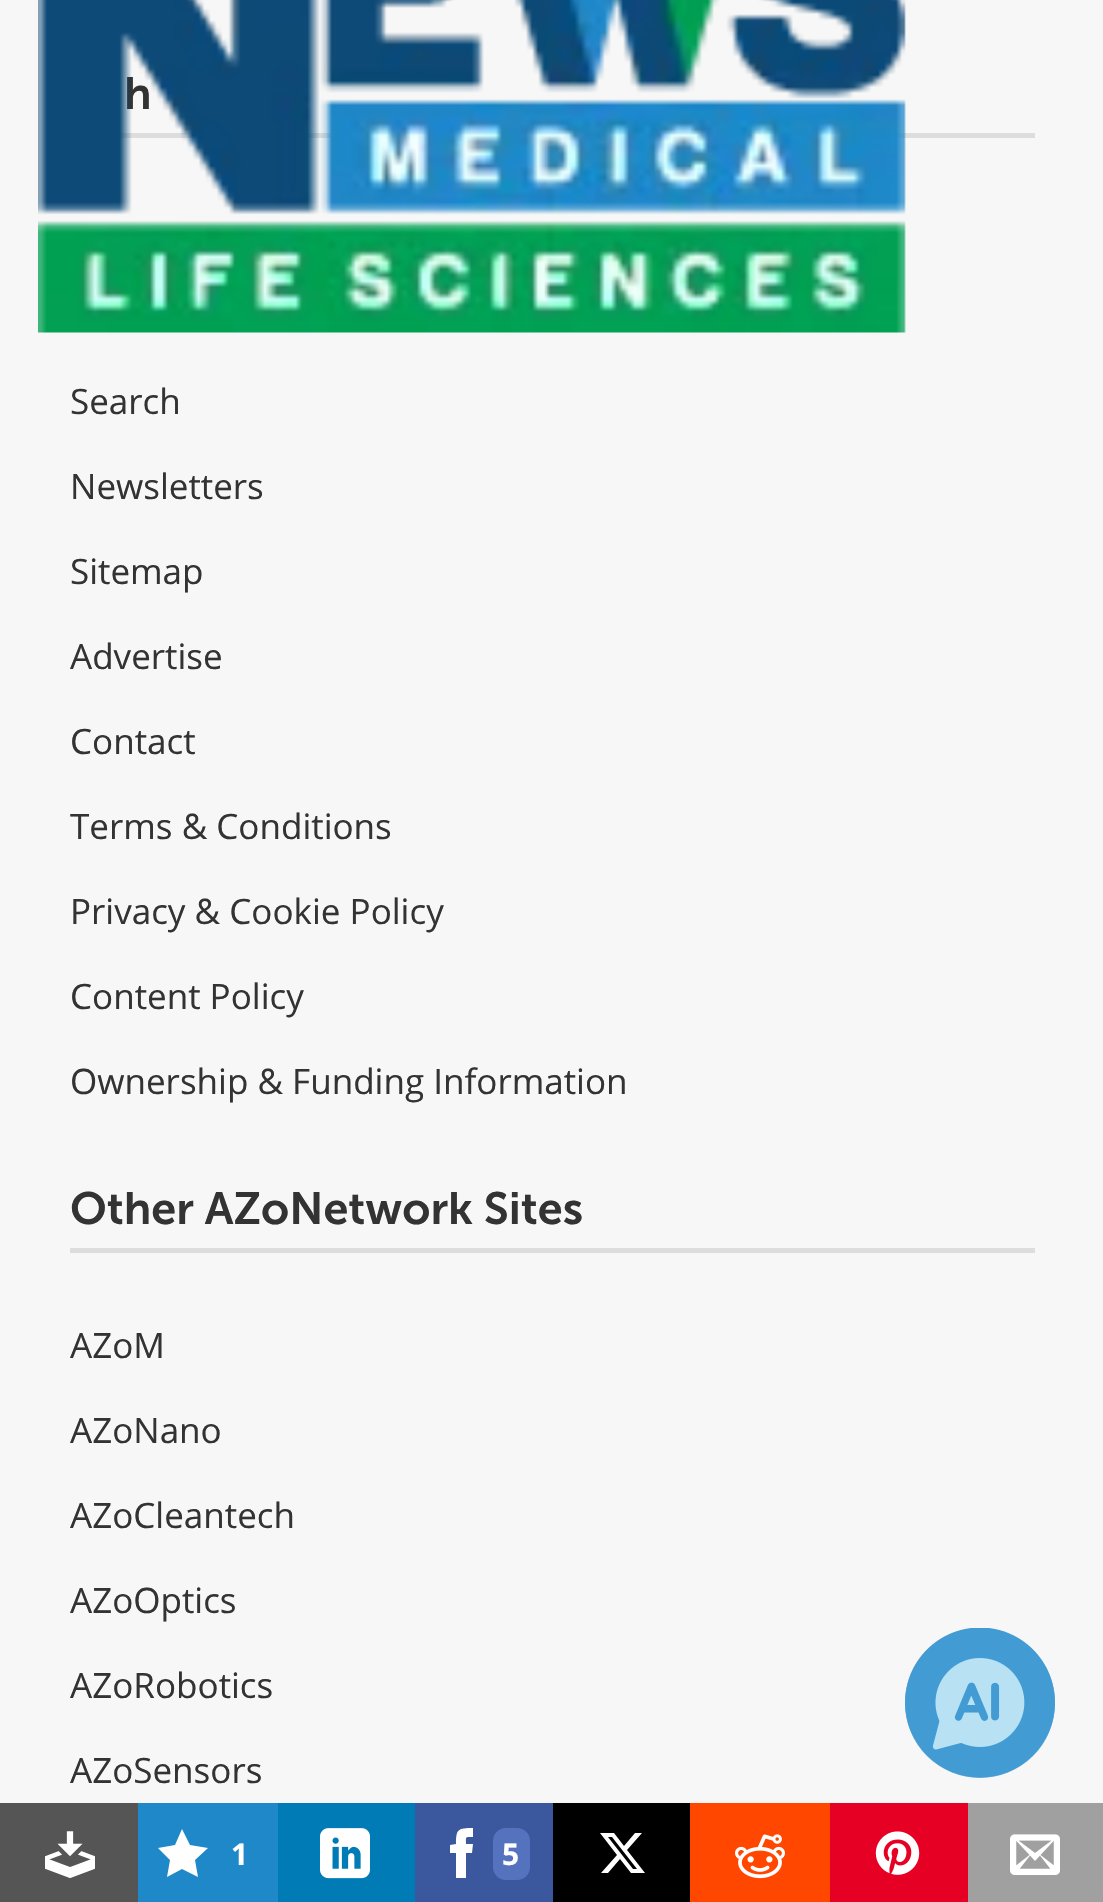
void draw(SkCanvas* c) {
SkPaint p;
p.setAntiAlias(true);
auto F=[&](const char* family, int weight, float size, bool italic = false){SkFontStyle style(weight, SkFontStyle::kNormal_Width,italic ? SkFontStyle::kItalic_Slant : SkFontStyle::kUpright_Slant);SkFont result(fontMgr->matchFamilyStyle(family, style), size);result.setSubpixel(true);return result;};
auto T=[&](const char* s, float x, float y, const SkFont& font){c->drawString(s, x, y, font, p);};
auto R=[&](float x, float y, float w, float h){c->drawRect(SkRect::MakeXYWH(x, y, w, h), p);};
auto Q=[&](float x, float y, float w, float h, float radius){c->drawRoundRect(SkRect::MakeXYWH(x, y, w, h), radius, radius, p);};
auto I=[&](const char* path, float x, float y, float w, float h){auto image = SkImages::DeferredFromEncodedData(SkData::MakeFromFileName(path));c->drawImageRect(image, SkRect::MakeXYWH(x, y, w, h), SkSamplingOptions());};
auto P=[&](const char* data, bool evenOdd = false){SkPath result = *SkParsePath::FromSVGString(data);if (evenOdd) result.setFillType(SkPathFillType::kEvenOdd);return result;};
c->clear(0xfff7f7f7);
p.setColor(0xffdddddd);
R(119,133,916,5);
auto f1 = F("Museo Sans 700",600,45);
p.setColor(0xff333333);
T("h",124,109,f1);
I("1.png",38,0,868,333);
auto f2 = F("Open Sans",400,35);
T("Search",70,414,f2);
T("Newsletters",70,499,f2);
T("Sitemap",70,584,f2);
T("Advertise",70,669,f2);
T("Contact",70,754,f2);
T("Terms & Conditions",70,839,f2);
T("Privacy & Cookie Policy",70,924,f2);
T("Content Policy",70,1009,f2);
T("Ownership & Funding Information",70,1094,f2);
p.setColor(0xffdddddd);
R(70,1248,965,5);
p.setColor(0xff333333);
T("Other AZoNetwork Sites",70,1224,f1);
T("AZoM",70,1358,f2);
T("AZoNano",70,1443,f2);
T("AZoCleantech",70,1528,f2);
T("AZoOptics",70,1613,f2);
T("AZoRobotics",70,1698,f2);
T("AZoSensors",70,1783,f2);
p.setColor(0xff7fb3db);
c->drawCircle(980,1703,75,p);
I("2.png",905,1628,150,150);
p.setColor(0xff555555);
R(0,1803,138,99);
I("3.png",45,1831,50,47);
p.setColor(0xff1e88c9);
R(138,1803,140,99);
p.setColor(0xffffffff);
c->drawPath(P("M208 1848l-18-3l-8-16l-7 16l-17 3l12 12l-3 17l15-8l16 8l-3-17z"),p);
auto f3 = F("Open Sans",700,30);
T("1",231,1865,f3);
p.setColor(0xff007bb6);
R(278,1803,137,99);
I("4.png",320,1828,50,51);
p.setColor(0xff3b579d);
R(415,1803,138,99);
p.setColor(0xffffffff);
c->drawPath(P("M466 1878h-10v-25h-6v-8l6-1c0-15 2-16 17-16v9c-8 0-7-1-7 7h7l-1 9h-6z"),p);
p.setColor(0xff5472be);
Q(493,1828,37,52,13);
p.setColor(0xffffffff);
T("5",502,1865,f3);
p.setColor(0xff000000);
R(553,1803,137,99);
p.setColor(0xffffffff);
c->drawPath(P("M635 1833h7l-15 17l18 23h-14l-11-14l-12 14h-7l16-18l-17-22h14l10 13zm-2 36h4l-25-32h-4z"),p);
p.setColor(0xffff4700);
R(690,1803,140,99);
I("5.png",735,1834,50,45);
p.setColor(0xffe60023);
R(830,1803,138,99);
I("6.png",875,1831,45,44);
p.setColor(0xffa0a0a0);
R(968,1803,135,99);
I("7.png",1010,1834,50,41);
}
